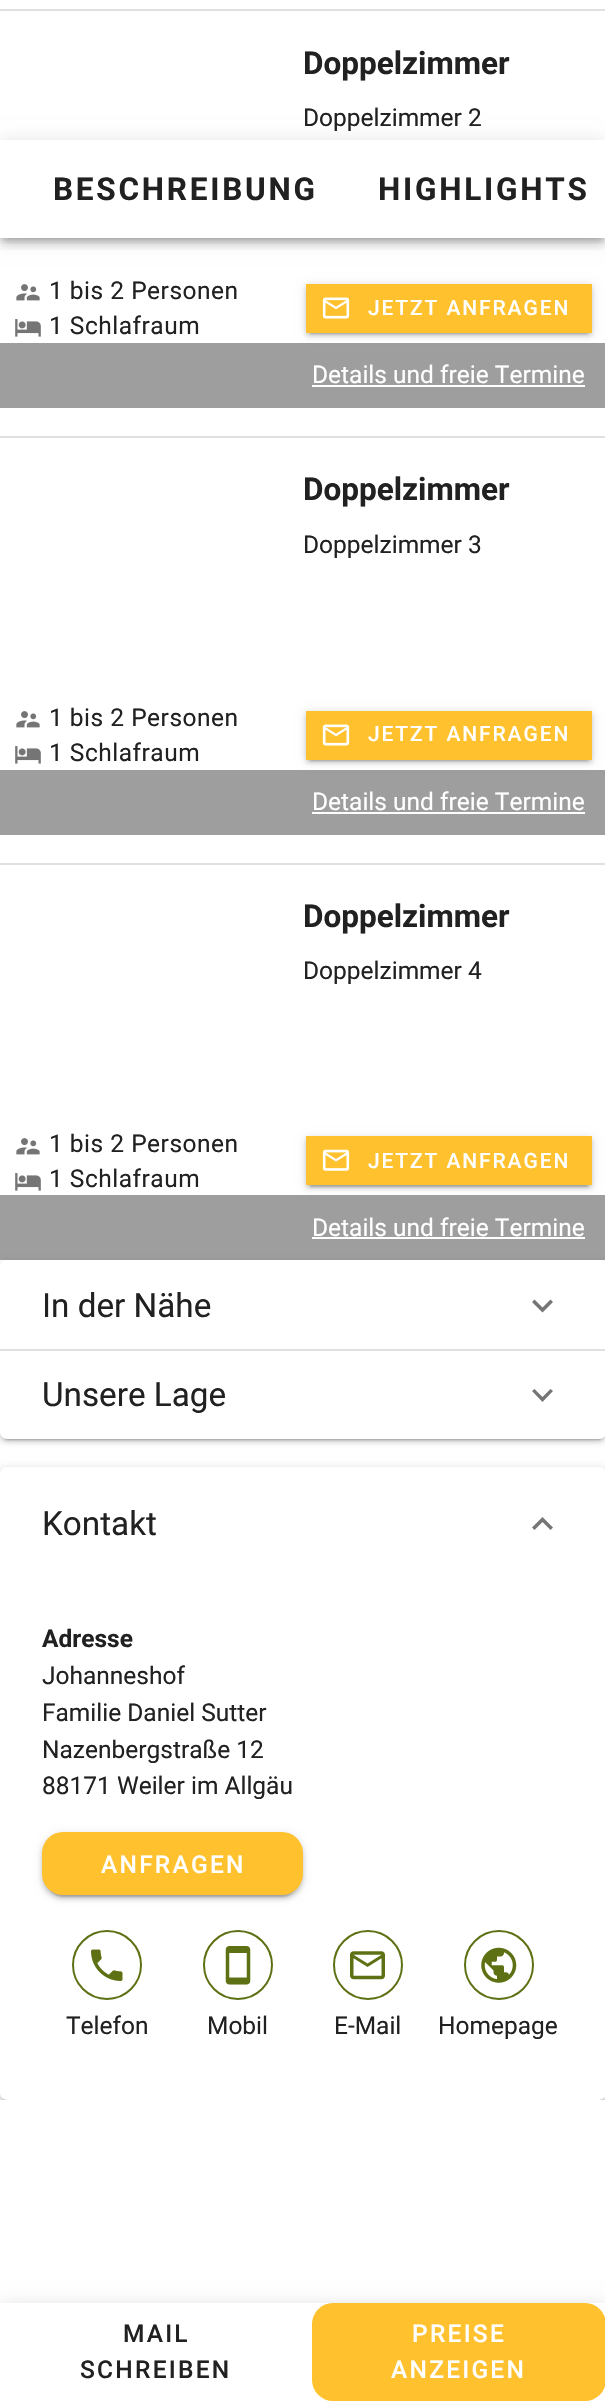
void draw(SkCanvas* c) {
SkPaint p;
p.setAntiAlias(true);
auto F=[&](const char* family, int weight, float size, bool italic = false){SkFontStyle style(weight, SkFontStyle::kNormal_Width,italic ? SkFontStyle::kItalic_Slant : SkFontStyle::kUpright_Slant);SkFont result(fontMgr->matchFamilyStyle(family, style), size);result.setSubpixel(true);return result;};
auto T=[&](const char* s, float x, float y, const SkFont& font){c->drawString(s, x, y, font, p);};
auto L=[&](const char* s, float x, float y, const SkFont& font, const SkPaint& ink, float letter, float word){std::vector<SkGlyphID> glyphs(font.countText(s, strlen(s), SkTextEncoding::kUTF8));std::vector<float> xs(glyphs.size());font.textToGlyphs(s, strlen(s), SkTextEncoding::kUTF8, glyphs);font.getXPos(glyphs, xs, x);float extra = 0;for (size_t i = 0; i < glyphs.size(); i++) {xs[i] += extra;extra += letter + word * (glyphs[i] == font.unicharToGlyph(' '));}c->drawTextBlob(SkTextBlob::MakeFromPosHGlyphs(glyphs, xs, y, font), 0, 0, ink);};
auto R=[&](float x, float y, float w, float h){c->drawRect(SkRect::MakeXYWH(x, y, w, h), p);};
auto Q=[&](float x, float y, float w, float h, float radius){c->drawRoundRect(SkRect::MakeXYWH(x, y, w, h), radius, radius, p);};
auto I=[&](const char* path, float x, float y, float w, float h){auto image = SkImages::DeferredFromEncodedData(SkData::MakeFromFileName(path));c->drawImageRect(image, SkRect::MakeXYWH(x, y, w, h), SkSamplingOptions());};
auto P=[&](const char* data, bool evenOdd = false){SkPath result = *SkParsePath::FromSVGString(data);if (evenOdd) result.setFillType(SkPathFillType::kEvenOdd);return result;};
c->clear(0xffffffff);
p.setColor(0xffe0e0e0);
R(0,9,605,2);
auto f1 = F("Roboto",700,31.5);
p.setColor(0xff212121);
T("Doppelzimmer",303,74,f1);
auto f2 = F("Roboto",400,24.5);
T("Doppelzimmer 2",303,126,f2);
I("1.png",16,284,24,17);
L("1 bis 2 Personen",49,299,f2,p,.5,0);
I("2.png",15,319,26,18);
L("1 Schlafraum",49,334,f2,p,.5,0);
p.setColor(0xff9e9e9e);
R(0,343,605,65);
p.setColor(0x1f000000);
p.setMaskFilter(SkMaskFilter::MakeBlur(kNormal_SkBlurStyle, 4.5));
c->drawRect(SkRect::MakeXYWH(306,285,286,49),p);
p.setMaskFilter(nullptr);
p.setColor(0x24000000);
p.setMaskFilter(SkMaskFilter::MakeBlur(kNormal_SkBlurStyle, 2));
c->drawRect(SkRect::MakeXYWH(306,287,286,49),p);
p.setMaskFilter(nullptr);
p.setColor(0x33000000);
p.setMaskFilter(SkMaskFilter::MakeBlur(kNormal_SkBlurStyle, 1));
c->drawRect(SkRect::MakeXYWH(310,292,278,42),p);
p.setMaskFilter(nullptr);
p.setColor(0xffffc12d);
R(306,284,286,49);
I("3.png",322,297,28,22);
auto f3 = F("Roboto",500,21);
p.setColor(0xffffffff);
L("JETZT ANFRAGEN",368,315,f3,p,1.9,0);
T("Details und freie Termine",312,383,f2);
R(312,385,273,2);
p.setColor(0xffe0e0e0);
R(0,436,605,2);
p.setColor(0xff212121);
T("Doppelzimmer",303,500,f1);
T("Doppelzimmer 3",303,553,f2);
I("1.png",16,711,24,17);
L("1 bis 2 Personen",49,726,f2,p,.5,0);
I("2.png",15,746,26,18);
L("1 Schlafraum",49,761,f2,p,.5,0);
p.setColor(0xff9e9e9e);
R(0,770,605,65);
p.setColor(0x1f000000);
p.setMaskFilter(SkMaskFilter::MakeBlur(kNormal_SkBlurStyle, 4.5));
c->drawRect(SkRect::MakeXYWH(306,712,286,49),p);
p.setMaskFilter(nullptr);
p.setColor(0x24000000);
p.setMaskFilter(SkMaskFilter::MakeBlur(kNormal_SkBlurStyle, 2));
c->drawRect(SkRect::MakeXYWH(306,714,286,49),p);
p.setMaskFilter(nullptr);
p.setColor(0x33000000);
p.setMaskFilter(SkMaskFilter::MakeBlur(kNormal_SkBlurStyle, 1));
c->drawRect(SkRect::MakeXYWH(310,719,278,42),p);
p.setMaskFilter(nullptr);
p.setColor(0xffffc12d);
R(306,711,286,49);
I("3.png",322,724,28,22);
p.setColor(0xffffffff);
L("JETZT ANFRAGEN",368,741,f3,p,1.9,0);
T("Details und freie Termine",312,810,f2);
R(312,812,273,2);
p.setColor(0xffe0e0e0);
R(0,863,605,2);
p.setColor(0xff212121);
T("Doppelzimmer",303,927,f1);
T("Doppelzimmer 4",303,979,f2);
I("1.png",16,1138,24,17);
L("1 bis 2 Personen",49,1152,f2,p,.5,0);
I("2.png",15,1173,26,18);
L("1 Schlafraum",49,1187,f2,p,.5,0);
p.setColor(0xff9e9e9e);
R(0,1195,605,65);
p.setColor(0x1f000000);
p.setMaskFilter(SkMaskFilter::MakeBlur(kNormal_SkBlurStyle, 4.5));
c->drawRect(SkRect::MakeXYWH(306,1138,286,49),p);
p.setMaskFilter(nullptr);
p.setColor(0x24000000);
p.setMaskFilter(SkMaskFilter::MakeBlur(kNormal_SkBlurStyle, 2));
c->drawRect(SkRect::MakeXYWH(306,1139,286,49),p);
p.setMaskFilter(nullptr);
p.setColor(0x33000000);
p.setMaskFilter(SkMaskFilter::MakeBlur(kNormal_SkBlurStyle, 1));
c->drawRect(SkRect::MakeXYWH(310,1145,278,42),p);
p.setMaskFilter(nullptr);
p.setColor(0xffffc12d);
R(306,1136,286,49);
I("4.png",322,1149,28,22);
p.setColor(0xffffffff);
L("JETZT ANFRAGEN",368,1168,f3,p,1.9,0);
T("Details und freie Termine",312,1236,f2);
R(312,1237,273,2);
p.setColor(0x1f000000);
p.setMaskFilter(SkMaskFilter::MakeBlur(kNormal_SkBlurStyle, 4.5));
c->drawRoundRect(SkRect::MakeXYWH(0,1262,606,89),7,7,p);
p.setMaskFilter(nullptr);
p.setMaskFilter(SkMaskFilter::MakeBlur(kNormal_SkBlurStyle, 4.5));
c->drawRoundRect(SkRect::MakeXYWH(0,1351,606,89),7,7,p);
p.setMaskFilter(nullptr);
p.setColor(0x24000000);
p.setMaskFilter(SkMaskFilter::MakeBlur(kNormal_SkBlurStyle, 2));
c->drawRoundRect(SkRect::MakeXYWH(0,1353,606,89),7,7,p);
p.setMaskFilter(nullptr);
p.setColor(0xffffffff);
c->drawPath(P("M7 1260h592c4 0 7 3 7 7v82h-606v-82c0-4 3-7 7-7z"),p);
auto f4 = F("Roboto",400,33.25);
p.setColor(0xff212121);
T("In der Nähe",42,1317,f4);
p.setColor(0xff757575);
c->drawPath(P("M534.5 1299.5l8 8l8-8l2.5 2.5l-10.5 10.5l-10.5-10.5z"),p);
p.setColor(0x33000000);
p.setMaskFilter(SkMaskFilter::MakeBlur(kNormal_SkBlurStyle, 1));
c->drawRoundRect(SkRect::MakeXYWH(4,1358,598,82),4,4,p);
p.setMaskFilter(nullptr);
p.setColor(0xffffffff);
c->drawPath(P("M0 1349h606v83c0 4-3 7-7 7h-592c-4 0-7-3-7-7z"),p);
p.setColor(0xffe0e0e0);
R(0,1349,605,2);
p.setColor(0xff212121);
T("Unsere Lage",42,1406,f4);
p.setColor(0xff757575);
c->drawPath(P("M534.5 1389l8 8l8-8l2.5 2l-10.5 11l-10.5-11z"),p);
c->save();
c->clipRect(SkRect::MakeXYWH(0,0,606,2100));
p.setColor(0x1f000000);
p.setMaskFilter(SkMaskFilter::MakeBlur(kNormal_SkBlurStyle, 4.5));
c->drawRoundRect(SkRect::MakeXYWH(0,1468,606,634),7,7,p);
p.setMaskFilter(nullptr);
p.setColor(0x24000000);
p.setMaskFilter(SkMaskFilter::MakeBlur(kNormal_SkBlurStyle, 2));
c->drawRoundRect(SkRect::MakeXYWH(0,1470,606,634),7,7,p);
p.setMaskFilter(nullptr);
p.setColor(0x33000000);
p.setMaskFilter(SkMaskFilter::MakeBlur(kNormal_SkBlurStyle, 1));
c->drawRoundRect(SkRect::MakeXYWH(4,1475,598,627),4,4,p);
p.setMaskFilter(nullptr);
c->restore();
p.setColor(0xffffffff);
Q(0,1467,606,633,7);
p.setColor(0xff212121);
T("Kontakt",42,1535,f4);
p.setColor(0xff757575);
c->drawPath(P("M550.5 1530l-8-8l-8 8l-2.5-2.5l10.5-10.5l10.5 10.5z"),p);
auto f5 = F("Roboto",700,24.5);
p.setColor(0xff212121);
T("Adresse",42,1647,f5);
T("Johanneshof",42,1684,f2);
T("Familie Daniel Sutter",42,1721,f2);
T("Nazenbergstraße 12",42,1758,f2);
T("88171 Weiler im Allgäu",42,1794,f2);
p.setColor(0x1f000000);
p.setMaskFilter(SkMaskFilter::MakeBlur(kNormal_SkBlurStyle, 4.5));
c->drawRoundRect(SkRect::MakeXYWH(42,1834,261,63),21,21,p);
p.setMaskFilter(nullptr);
p.setColor(0x24000000);
p.setMaskFilter(SkMaskFilter::MakeBlur(kNormal_SkBlurStyle, 2));
c->drawRoundRect(SkRect::MakeXYWH(42,1836,261,63),21,21,p);
p.setMaskFilter(nullptr);
p.setColor(0x33000000);
p.setMaskFilter(SkMaskFilter::MakeBlur(kNormal_SkBlurStyle, 1));
c->drawRoundRect(SkRect::MakeXYWH(46,1841,253,56),18,18,p);
p.setMaskFilter(nullptr);
p.setColor(0xffffc12d);
Q(42,1832,261,63,21);
auto f6 = F("Roboto",500,24.5);
p.setColor(0xffffffff);
L("ANFRAGEN",101,1873,f6,p,2.25,0);
p.setStroke(true);
p.setStrokeWidth(2);
p.setColor(0xff5d7114);
c->drawCircle(107,1965,34,p);
I("5.png",91,1949,32,32);
p.setStroke(false);
p.setColor(0xff212121);
T("Telefon",66,2034,f2);
p.setStroke(true);
p.setColor(0xff5d7114);
c->drawCircle(238,1965,34,p);
I("6.png",225,1946,26,39);
p.setStroke(false);
p.setColor(0xff212121);
T("Mobil",207,2034,f2);
p.setStroke(true);
p.setColor(0xff5d7114);
c->drawCircle(368,1965,34,p);
I("7.png",350,1951,35,29);
p.setStroke(false);
p.setColor(0xff212121);
T("E-Mail",334,2034,f2);
p.setStroke(true);
p.setColor(0xff5d7114);
c->drawCircle(499,1965,34,p);
I("8.png",481,1947,36,36);
p.setStroke(false);
p.setColor(0xff212121);
T("Homepage",438,2034,f2);
p.setColor(0x1f000000);
p.setMaskFilter(SkMaskFilter::MakeBlur(kNormal_SkBlurStyle, 9));
c->drawRect(SkRect::MakeXYWH(0,2305,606,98),p);
p.setMaskFilter(nullptr);
p.setColor(0xffffffff);
R(0,2303,605,98);
p.setColor(0xff212121);
L("MAIL",123,2342,f6,p,2.25,0);
L("SCHREIBEN",80,2378,f6,p,2.25,0);
p.setColor(0xffffc12d);
Q(312,2303,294,98,21);
p.setColor(0xffffffff);
L("PREISE",412,2342,f6,p,2.25,0);
L("ANZEIGEN",391,2378,f6,p,2.25,0);
c->save();
c->clipPath(P("M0 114h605v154h-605zm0 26h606v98h-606z",true),true);
p.setColor(0x1f000000);
p.setMaskFilter(SkMaskFilter::MakeBlur(kNormal_SkBlurStyle, 9));
c->drawRect(SkRect::MakeXYWH(0,142,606,98),p);
p.setMaskFilter(nullptr);
c->restore();
c->save();
c->clipRect(SkRect::MakeXYWH(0,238,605,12));
p.setColor(0x24000000);
p.setMaskFilter(SkMaskFilter::MakeBlur(kNormal_SkBlurStyle, 4.5));
c->drawRect(SkRect::MakeXYWH(0,147,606,98),p);
p.setMaskFilter(nullptr);
c->restore();
c->save();
c->clipRect(SkRect::MakeXYWH(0,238,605,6));
p.setColor(0x33000000);
p.setMaskFilter(SkMaskFilter::MakeBlur(kNormal_SkBlurStyle, 3.5));
c->drawRect(SkRect::MakeXYWH(2,145,602,95),p);
p.setMaskFilter(nullptr);
c->restore();
p.setColor(0xff212121);
L("BESCHREIBUNG",53,200,f1,p,2.75,0);
L("HIGHLIGHTS",378,200,f1,p,2.75,0);
}
